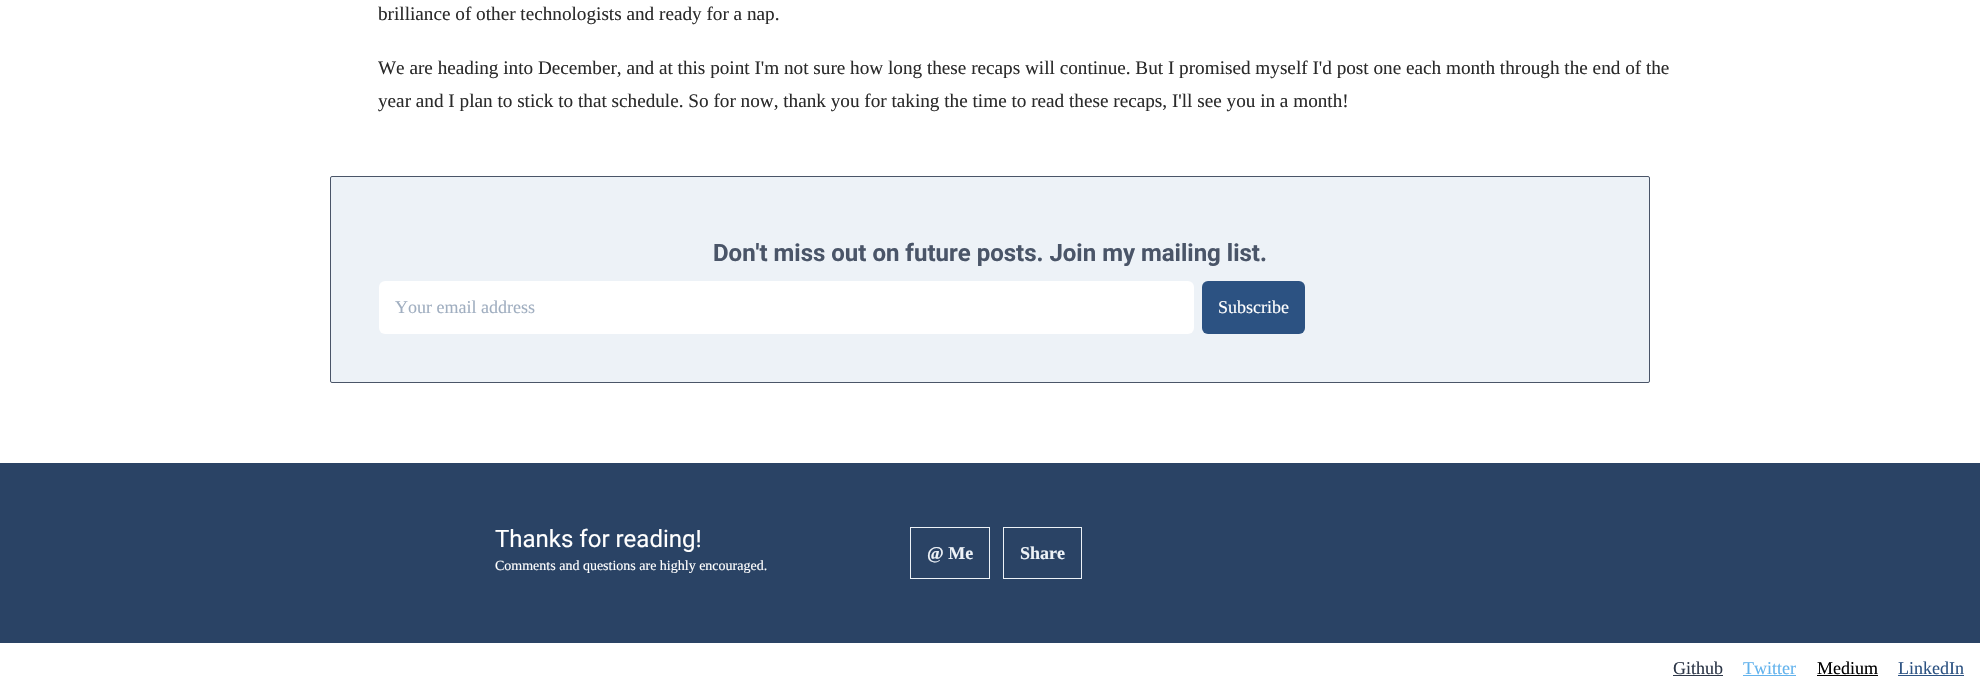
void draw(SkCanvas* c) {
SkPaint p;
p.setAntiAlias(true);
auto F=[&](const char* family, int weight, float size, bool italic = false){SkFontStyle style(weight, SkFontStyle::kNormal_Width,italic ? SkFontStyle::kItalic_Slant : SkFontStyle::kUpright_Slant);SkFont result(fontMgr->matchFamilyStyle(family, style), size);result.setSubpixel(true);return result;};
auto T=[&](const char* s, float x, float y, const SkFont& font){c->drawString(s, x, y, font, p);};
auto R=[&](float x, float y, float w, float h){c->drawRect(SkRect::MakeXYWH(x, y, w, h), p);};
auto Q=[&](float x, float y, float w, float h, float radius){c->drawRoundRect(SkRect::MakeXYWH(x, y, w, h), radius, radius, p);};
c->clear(0xffffffff);
auto f1 = F("Liberation Serif",400,19.2);
p.setColor(0xff2b2b2b);
T("brilliance of other technologists and ready for a nap.",378,20,f1);
T("We are heading into December, and at this point I'm not sure how long these recaps will continue. But I promised myself I'd post one each month through the end of the",378,74,f1);
T("year and I plan to stick to that schedule. So for now, thank you for taking the time to read these recaps, I'll see you in a month!",378,107,f1);
p.setColor(0xffedf2f7);
c->drawRoundRect(SkRect::MakeXYWH(330.5,176.5,1319,206),1.5,1.5,p);
p.setStroke(true);
p.setStrokeWidth(1);
p.setColor(0xff4a5568);
c->drawRoundRect(SkRect::MakeXYWH(330.5,176.5,1319,206),1.5,1.5,p);
auto f2 = F("Roboto",700,24);
p.setStroke(false);
T("Don't miss out on future posts. Join my mailing list.",713,261,f2);
p.setColor(0xffffffff);
Q(379,281,815,53,6);
auto f3 = F("Liberation Serif",400,18);
p.setColor(0xffa0aec0);
T("Your email address",395,313,f3);
p.setColor(0xff2c5282);
Q(1202,281,103,53,6);
p.setColor(0xffffffff);
T("Subscribe",1218,313,f3);
p.setColor(0xff2a4365);
R(0,463,1980,180);
auto f4 = F("Roboto",400,24);
p.setColor(0xffffffff);
T("Thanks for reading!",495,547,f4);
auto f5 = F("Liberation Serif",400,14);
T("Comments and questions are highly encouraged.",495,570,f5);
p.setStroke(true);
p.setColor(0xffedf2f7);
c->drawRect(SkRect::MakeXYWH(910.5,527.5,79,51),p);
auto f6 = F("Liberation Serif",700,18);
p.setStroke(false);
T("@ Me",927,559,f6);
p.setStroke(true);
c->drawRect(SkRect::MakeXYWH(1003.5,527.5,78,51),p);
p.setStroke(false);
T("Share",1020,559,f6);
p.setColor(0xff2d3748);
T("Github",1673,674,f3);
R(1673,675,50,1);
p.setColor(0xff63b3ed);
T("Twitter",1743,674,f3);
R(1743,675,53,1);
p.setColor(0xff000000);
T("Medium",1817,674,f3);
R(1817,675,61,1);
p.setColor(0xff2c5282);
T("LinkedIn",1898,674,f3);
R(1898,675,66,1);
}
